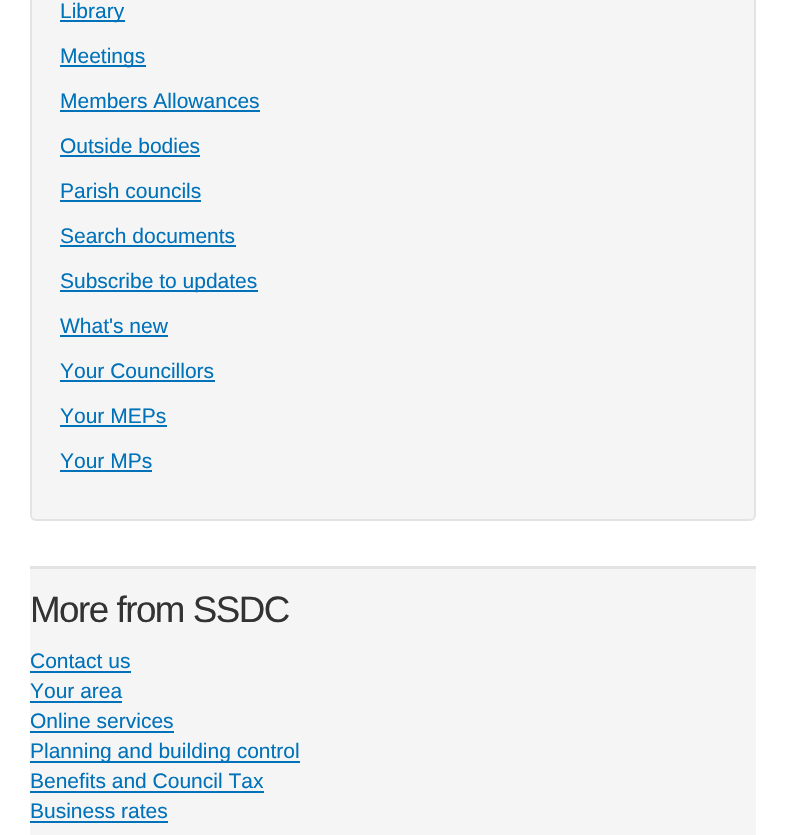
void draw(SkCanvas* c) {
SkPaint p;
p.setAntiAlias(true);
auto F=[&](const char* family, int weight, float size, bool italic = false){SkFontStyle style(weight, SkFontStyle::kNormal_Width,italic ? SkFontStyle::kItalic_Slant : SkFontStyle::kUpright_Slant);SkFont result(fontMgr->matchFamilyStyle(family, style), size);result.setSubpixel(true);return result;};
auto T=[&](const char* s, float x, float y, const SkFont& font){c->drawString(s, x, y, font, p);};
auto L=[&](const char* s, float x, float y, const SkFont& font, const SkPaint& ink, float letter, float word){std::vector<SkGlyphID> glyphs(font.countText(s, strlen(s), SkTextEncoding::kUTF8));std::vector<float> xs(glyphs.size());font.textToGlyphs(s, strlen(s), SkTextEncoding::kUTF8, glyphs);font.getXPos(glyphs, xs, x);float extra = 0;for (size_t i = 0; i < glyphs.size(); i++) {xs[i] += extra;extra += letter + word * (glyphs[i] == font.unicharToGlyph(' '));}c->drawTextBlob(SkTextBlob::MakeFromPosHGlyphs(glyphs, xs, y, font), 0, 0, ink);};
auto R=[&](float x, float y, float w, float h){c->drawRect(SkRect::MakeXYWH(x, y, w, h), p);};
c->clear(0xffffffff);
p.setColor(0xfff5f5f5);
c->drawRoundRect(SkRect::MakeXYWH(31,-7,724,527),5,5,p);
p.setStroke(true);
p.setStrokeWidth(2);
p.setColor(0xffe3e3e3);
c->drawRoundRect(SkRect::MakeXYWH(31,-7,724,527),5,5,p);
p.setStroke(false);
p.setColor(0xff0072ba);
R(60,20,65,2);
auto f1 = F("Liberation Sans",400,21);
T("Library",60,18,f1);
R(60,65,86,2);
T("Meetings",60,63,f1);
T("Members Allowances",60,108,f1);
R(60,110,200,2);
T("Outside bodies",60,153,f1);
R(60,155,140,2);
T("Parish councils",60,198,f1);
R(60,200,141,2);
T("Search documents",60,243,f1);
R(60,245,176,2);
R(60,290,198,2);
T("Subscribe to updates",60,288,f1);
T("What's new",60,333,f1);
R(60,335,108,2);
T("Your Councillors",60,378,f1);
R(60,380,155,2);
T("Your MEPs",60,423,f1);
R(60,425,107,2);
T("Your MPs",60,468,f1);
R(60,470,92,2);
p.setColor(0xfff5f5f5);
R(30,569,726,266);
p.setColor(0xffe3e3e3);
R(30,566,726,3);
auto f2 = F("Liberation Sans",400,36.75);
p.setColor(0xff333333);
L("More from SSDC",30,622,f2,p,-1.5,0);
p.setColor(0xff0072ba);
T("Contact us",30,668,f1);
R(30,671,101,2);
T("Your area",30,698,f1);
R(30,701,92,2);
T("Online services",30,728,f1);
R(30,731,144,2);
R(30,761,270,2);
T("Planning and building control",30,758,f1);
T("Benefits and Council Tax",30,788,f1);
R(30,791,234,2);
T("Business rates",30,818,f1);
R(30,821,138,2);
}
